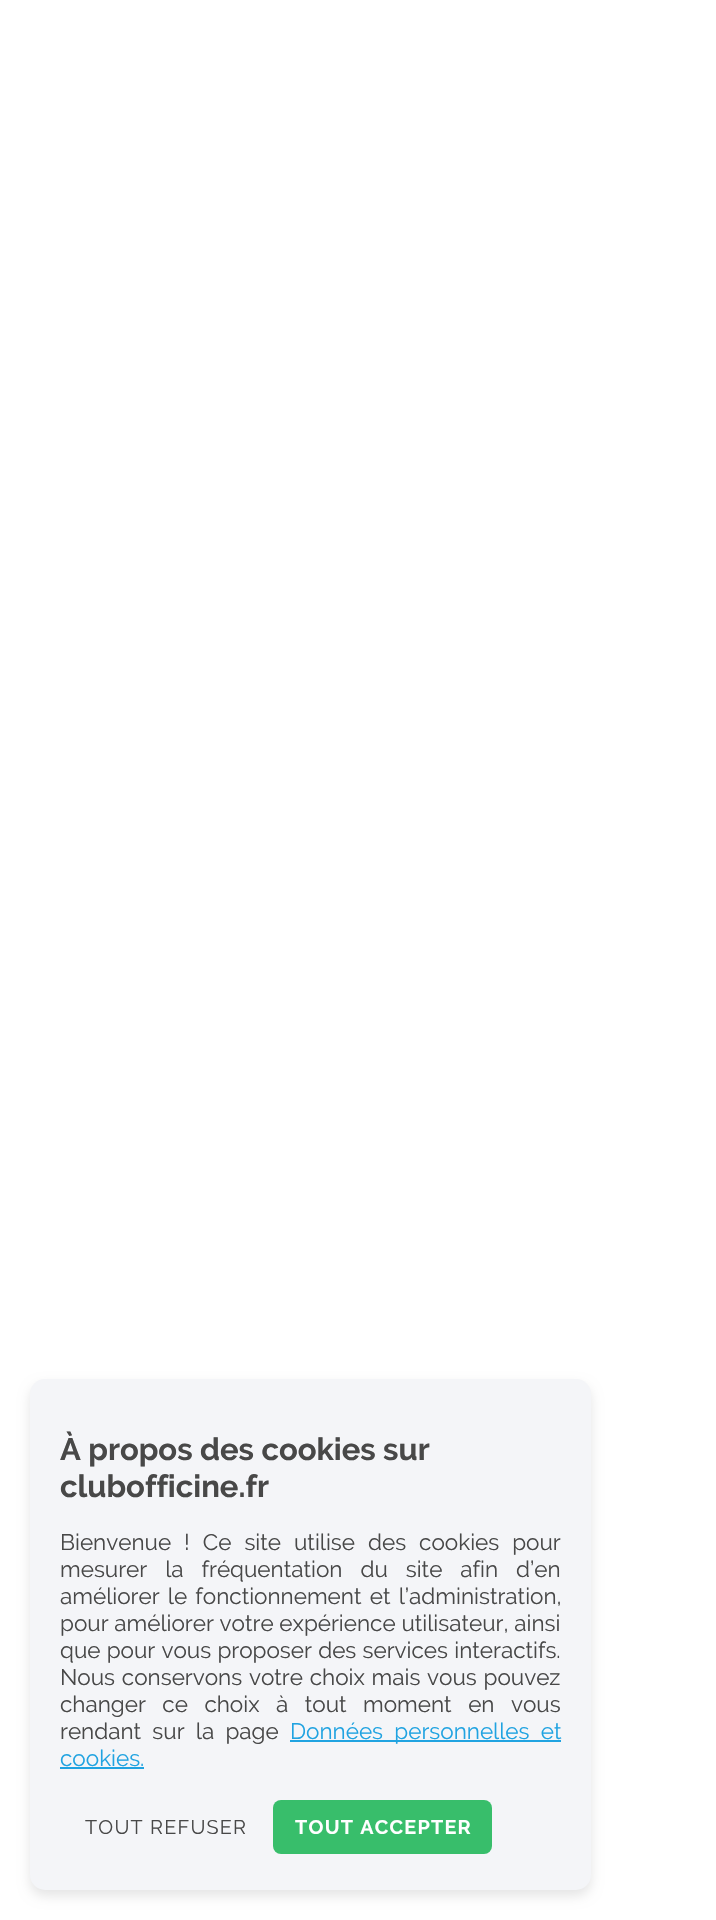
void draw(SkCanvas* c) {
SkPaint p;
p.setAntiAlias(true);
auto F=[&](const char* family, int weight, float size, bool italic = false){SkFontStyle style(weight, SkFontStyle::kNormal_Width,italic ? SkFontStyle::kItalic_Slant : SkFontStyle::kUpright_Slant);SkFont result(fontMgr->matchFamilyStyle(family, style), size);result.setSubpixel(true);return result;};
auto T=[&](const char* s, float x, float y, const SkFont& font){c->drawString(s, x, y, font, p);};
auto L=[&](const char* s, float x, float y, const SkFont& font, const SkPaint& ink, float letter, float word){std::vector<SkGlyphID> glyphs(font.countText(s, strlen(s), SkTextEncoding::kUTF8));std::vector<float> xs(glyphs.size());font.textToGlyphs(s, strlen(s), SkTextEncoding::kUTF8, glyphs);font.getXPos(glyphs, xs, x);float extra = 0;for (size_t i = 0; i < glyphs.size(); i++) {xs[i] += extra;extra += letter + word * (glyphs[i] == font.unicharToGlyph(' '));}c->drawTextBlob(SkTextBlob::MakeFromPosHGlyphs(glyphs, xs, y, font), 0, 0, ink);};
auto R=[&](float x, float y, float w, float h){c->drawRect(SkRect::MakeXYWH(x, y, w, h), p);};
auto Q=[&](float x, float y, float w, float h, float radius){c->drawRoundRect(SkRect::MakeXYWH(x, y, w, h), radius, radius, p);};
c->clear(0xffffffff);
p.setColor(0x1a000000);
p.setMaskFilter(SkMaskFilter::MakeBlur(kNormal_SkBlurStyle, 6));
c->drawRoundRect(SkRect::MakeXYWH(30,1385,561,511),15,15,p);
p.setMaskFilter(nullptr);
p.setColor(0xfff4f5f8);
Q(30,1379,561,511,15);
auto f1 = F("Raleway",700,31);
p.setColor(0xff484848);
T("À propos des cookies sur",60,1460,f1);
T("clubofficine.fr",60,1497,f1);
auto f2 = F("Raleway",400,22.5);
L("Bienvenue ! Ce site utilise des cookies pour",60,1550,f2,p,0,7.25);
L("mesurer la fréquentation du site afin d’en",60,1577,f2,p,0,12.25);
L("améliorer le fonctionnement et l’administration,",60,1604,f2,p,0,2.5);
T("pour améliorer votre expérience utilisateur, ainsi",60,1631,f2);
L("que pour vous proposer des services interactifs.",60,1658,f2,p,0,.5);
L("Nous conservons votre choix mais vous pouvez",60,1685,f2,p,0,1);
L("changer ce choix à tout moment en vous",60,1712,f2,p,0,10.75);
L("rendant sur la page",60,1739,f2,p,0,5.5);
p.setColor(0xff20a3e1);
R(290,1740,271,2);
L("Données personnelles et",290,1739,f2,p,0,5.5);
T("cookies.",60,1766,f2);
R(60,1767,84,2);
auto f3 = F("Raleway",400,19.75);
p.setColor(0xff484848);
L("TOUT REFUSER",85,1834,f3,p,1.25,0);
p.setColor(0xff38be6b);
Q(273,1800,219,54,8);
auto f4 = F("Raleway",700,19.75);
p.setColor(0xffffffff);
L("TOUT ACCEPTER",295,1834,f4,p,1.25,0);
}
